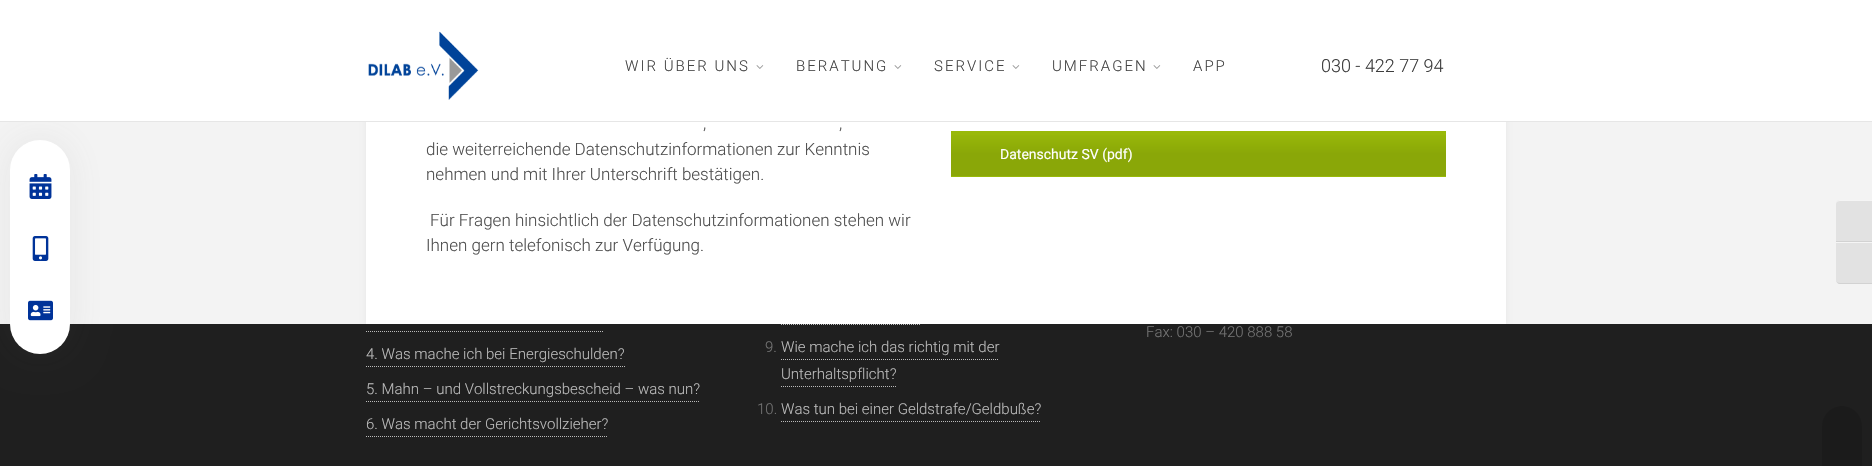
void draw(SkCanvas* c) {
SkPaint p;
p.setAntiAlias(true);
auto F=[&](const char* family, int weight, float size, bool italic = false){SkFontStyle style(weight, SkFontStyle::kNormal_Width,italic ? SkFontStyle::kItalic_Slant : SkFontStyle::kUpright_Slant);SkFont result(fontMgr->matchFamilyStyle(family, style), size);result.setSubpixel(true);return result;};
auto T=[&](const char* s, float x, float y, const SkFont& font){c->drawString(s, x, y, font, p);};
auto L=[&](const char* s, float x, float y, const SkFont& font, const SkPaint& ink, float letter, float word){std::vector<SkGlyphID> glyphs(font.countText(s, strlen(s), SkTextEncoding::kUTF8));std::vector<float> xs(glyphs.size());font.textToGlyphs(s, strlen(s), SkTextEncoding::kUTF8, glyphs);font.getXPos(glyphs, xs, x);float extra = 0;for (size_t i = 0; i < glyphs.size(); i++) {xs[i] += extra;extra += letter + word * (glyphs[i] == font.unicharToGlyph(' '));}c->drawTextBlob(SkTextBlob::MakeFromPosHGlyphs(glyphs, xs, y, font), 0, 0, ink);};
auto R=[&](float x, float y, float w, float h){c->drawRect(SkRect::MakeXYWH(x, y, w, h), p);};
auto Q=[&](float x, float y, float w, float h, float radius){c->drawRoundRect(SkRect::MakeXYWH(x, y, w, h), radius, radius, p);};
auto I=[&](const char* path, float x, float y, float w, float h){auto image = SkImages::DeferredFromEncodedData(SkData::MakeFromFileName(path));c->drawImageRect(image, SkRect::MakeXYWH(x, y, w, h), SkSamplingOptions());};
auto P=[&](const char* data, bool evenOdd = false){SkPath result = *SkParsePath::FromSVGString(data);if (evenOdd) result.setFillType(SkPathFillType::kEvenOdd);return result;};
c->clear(0xff1f1f1f);
p.setColor(0xfff3f3f3);
R(0,122,1872,202);
p.setColor(0x1a706f70);
p.setMaskFilter(SkMaskFilter::MakeBlur(kNormal_SkBlurStyle, 18.5));
c->drawRoundRect(SkRect::MakeXYWH(11,141,58,212),29,29,p);
p.setMaskFilter(nullptr);
p.setStroke(true);
p.setStrokeWidth(1);
p.setColor(0xffbbbbbb);
p.setPathEffect(SkDashPathEffect::Make({{1,1}}, 0));
c->drawPath(P("M366 331.5h238"),p);
p.setPathEffect(nullptr);
p.setPathEffect(SkDashPathEffect::Make({{1,1}}, 0));
c->drawPath(P("M781 324.5h139"),p);
p.setPathEffect(nullptr);
c->save();
c->clipRect(SkRect::MakeXYWH(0,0,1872,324));
p.setStroke(false);
p.setColor(0x0d000000);
p.setMaskFilter(SkMaskFilter::MakeBlur(kNormal_SkBlurStyle, 2.5));
c->drawRect(SkRect::MakeXYWH(366,-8,1140,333),p);
p.setMaskFilter(nullptr);
c->restore();
p.setColor(0xffffffff);
R(0,0,1872,121);
p.setColor(0xffe6e6e6);
R(0,121,1872,1);
I("1.png",368,31,111,69);
auto f1 = F("Roboto",300,15);
p.setColor(0xff444444);
L("WIR ÜBER UNS",625,71,f1,p,2,0);
I("2.png",756,65,8,4);
L("BERATUNG",796,71,f1,p,2,0);
I("2.png",894,65,8,4);
L("SERVICE",934,71,f1,p,2,0);
I("2.png",1012,65,8,4);
L("UMFRAGEN",1052,71,f1,p,2,0);
I("2.png",1153,65,8,4);
L("APP",1193,71,f1,p,2,0);
auto f2 = F("Roboto",300,18);
p.setColor(0xff3d3d3d);
T("030 - 422 77 94",1321,72,f2);
p.setColor(0xffffffff);
Q(10,140,60,214,30);
I("3.png",29,174,23,25);
I("4.png",32,236,17,25);
I("5.png",28,300,25,21);
R(366,122,1140,202);
auto f3 = F("Roboto",300,17);
p.setColor(0xff4f4f4f);
T(",",703,129,f3);
T(",",839,129,f3);
T("die weiterreichende Datenschutzinformationen zur Kenntnis",426,155,f3);
T("nehmen und mit Ihrer Unterschrift bestätigen.",426,180,f3);
T("Für Fragen hinsichtlich der Datenschutzinformationen stehen wir",430,226,f3);
T("Ihnen gern telefonisch zur Verfügung.",426,251,f3);
p.setColor(0xff99b909);
R(951,131,495,46);
{
const SkColor colors[] = {0xff99b909,0xff8aa708,0xff8aa708};
const float stops[] = {0,.5,1};
const SkPoint ends[] = {{1445,132}, {1445,176}};
p.setShader(SkGradientShader::MakeLinear(ends, colors, stops, 3, SkTileMode::kClamp));
p.setAlpha(255);
}
R(951,135,495,41);
auto f4 = F("Roboto",400,14);
p.setShader(nullptr);
p.setColor(0xffffffff);
T("Datenschutz SV (pdf)",1000,159,f4);
p.setColor(0xff737373);
T("Fax: 030 – 420 888 58",1146,337,f1);
p.setColor(0xffbbbbbb);
T("4. Was mache ich bei Energieschulden?",366,359,f1);
p.setStroke(true);
p.setPathEffect(SkDashPathEffect::Make({{1,1}}, 0));
c->drawPath(P("M366 366.5h259"),p);
p.setPathEffect(nullptr);
p.setStroke(false);
T("5. Mahn – und Vollstreckungsbescheid – was nun?",366,394,f1);
p.setStroke(true);
p.setPathEffect(SkDashPathEffect::Make({{1,1}}, 0));
c->drawPath(P("M366 401.5h334"),p);
p.setPathEffect(nullptr);
p.setStroke(false);
T("6. Was macht der Gerichtsvollzieher?",366,429,f1);
p.setStroke(true);
p.setPathEffect(SkDashPathEffect::Make({{1,1}}, 0));
c->drawPath(P("M366 436.5h242"),p);
p.setPathEffect(nullptr);
p.setStroke(false);
p.setColor(0xff737373);
T("9.",765,352,f1);
p.setColor(0xffbbbbbb);
T("Wie mache ich das richtig mit der",781,352,f1);
p.setStroke(true);
p.setPathEffect(SkDashPathEffect::Make({{1,1}}, 0));
c->drawPath(P("M781 359.5h218"),p);
p.setPathEffect(nullptr);
p.setStroke(false);
T("Unterhaltspflicht?",781,379,f1);
p.setStroke(true);
p.setPathEffect(SkDashPathEffect::Make({{1,1}}, 0));
c->drawPath(P("M781 386.5h115"),p);
p.setPathEffect(nullptr);
p.setStroke(false);
p.setColor(0xff737373);
T("10.",757,414,f1);
p.setColor(0xffbbbbbb);
T("Was tun bei einer Geldstrafe/Geldbuße?",781,414,f1);
p.setStroke(true);
p.setPathEffect(SkDashPathEffect::Make({{1,1}}, 0));
c->drawPath(P("M781 421.5h260"),p);
p.setPathEffect(nullptr);
p.setStroke(false);
p.setColor(0xff1b1b1b);
c->drawPath(P("M1842 406c11 0 20 9 20 20v40h-40v-40c0-11 9-20 20-20z"),p);
p.setColor(0xffe2e2e2);
c->drawPath(P("M1840 200h32v42h-36v-38c0-2 2-4 4-4z"),p);
p.setColor(0xfff5f5f5);
c->drawPath(P("M1840 201h32v-1h-32c-2 0-4 2-4 4c0-2 2-3 4-3z"),p);
p.setColor(0xffd2d2d2);
R(1836,241,36,1);
p.setColor(0xffe2e2e2);
c->drawPath(P("M1836 242h36v42h-32c-2 0-4-2-4-4z"),p);
p.setColor(0xfff5f5f5);
R(1836,242,36,1);
p.setColor(0xffd2d2d2);
c->drawPath(P("M1872 284v-1h-32c-2 0-4-1-4-3c0 2 2 4 4 4z"),p);
}
